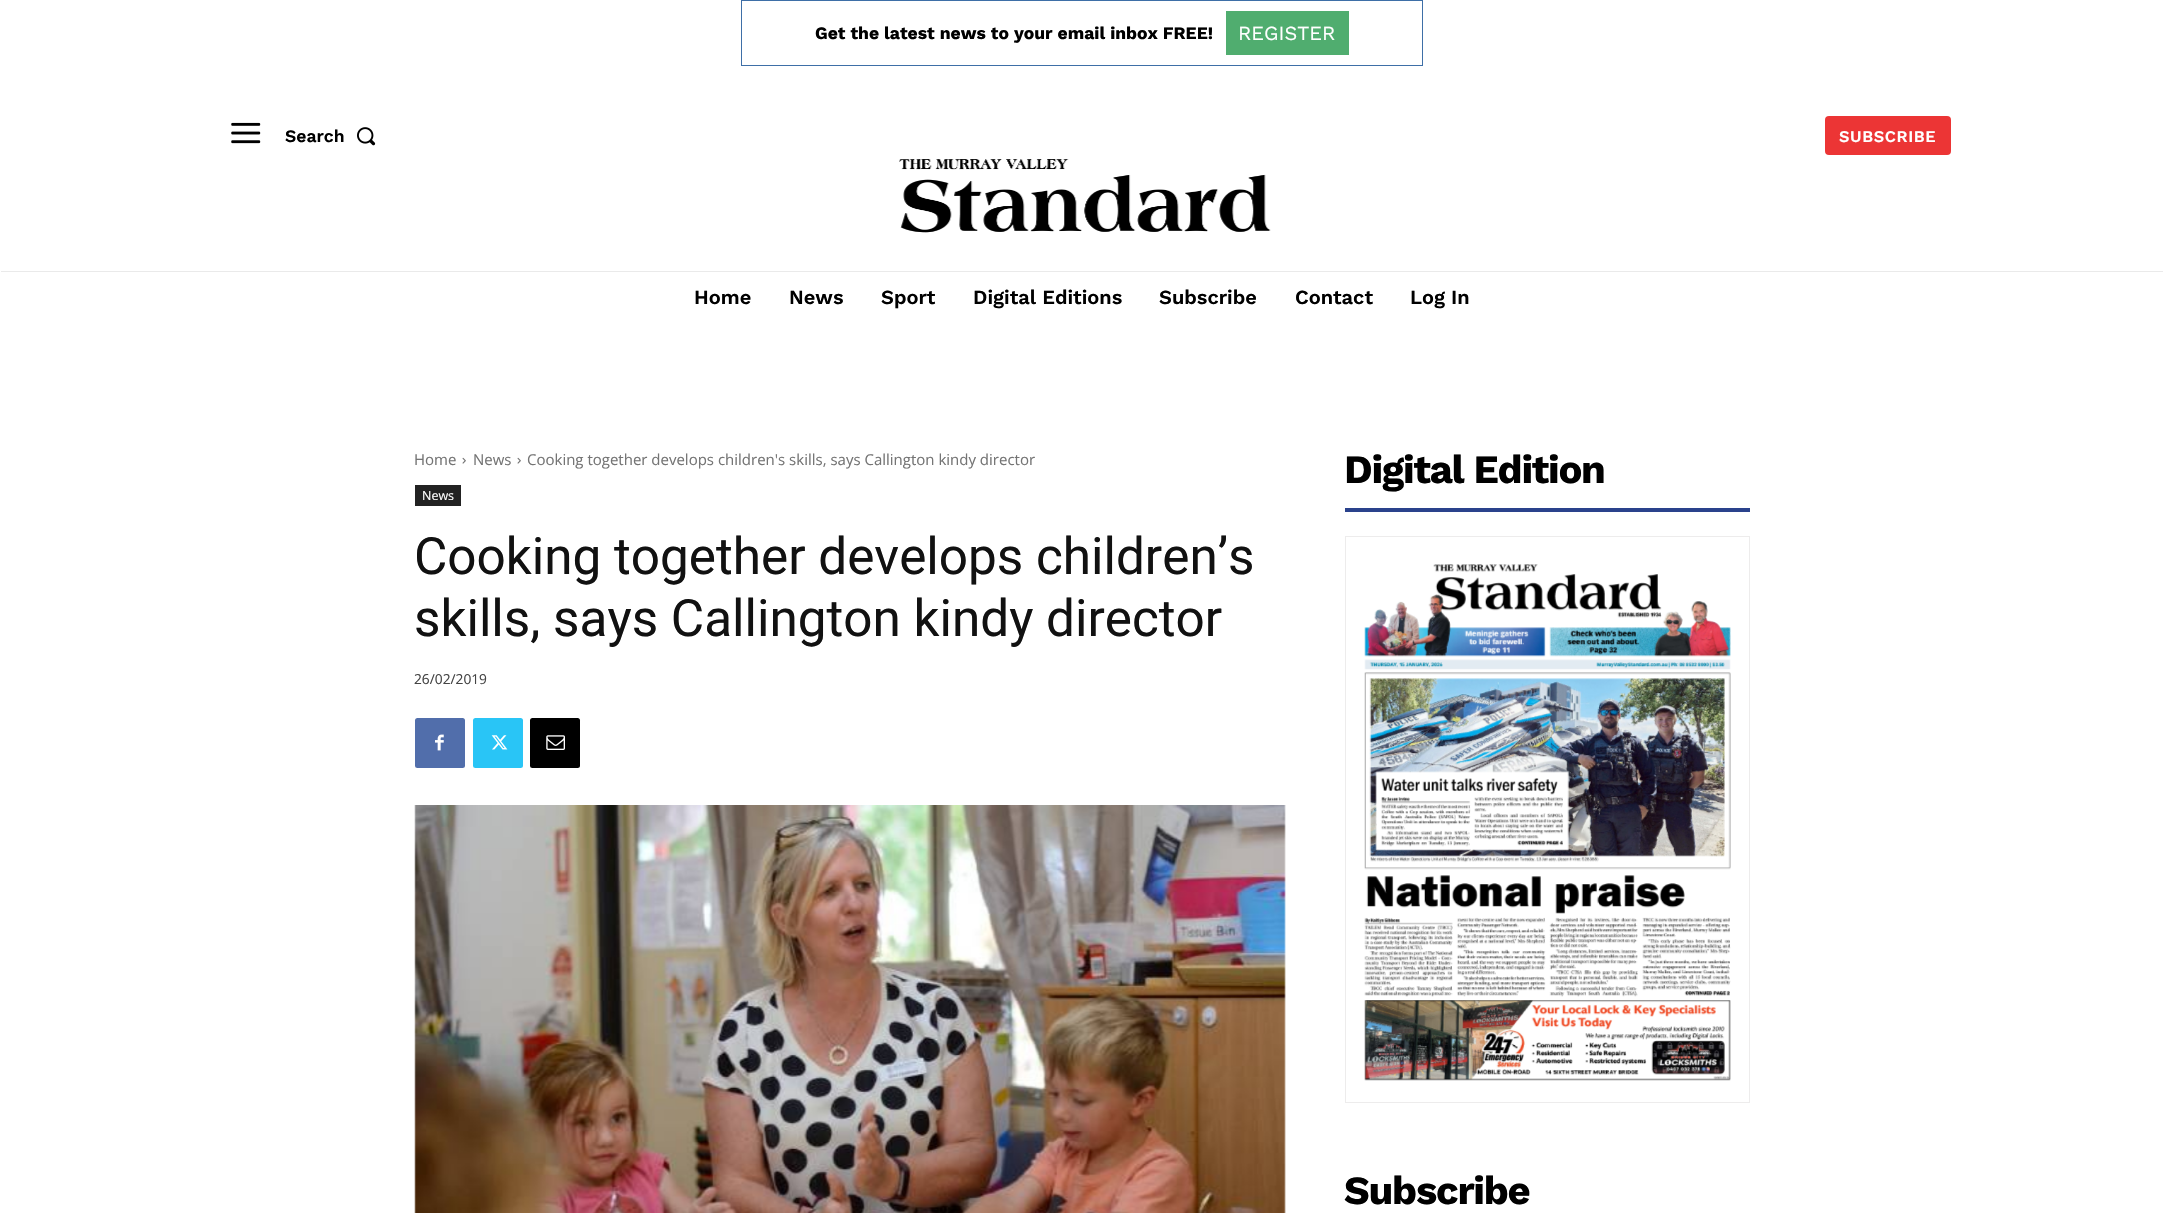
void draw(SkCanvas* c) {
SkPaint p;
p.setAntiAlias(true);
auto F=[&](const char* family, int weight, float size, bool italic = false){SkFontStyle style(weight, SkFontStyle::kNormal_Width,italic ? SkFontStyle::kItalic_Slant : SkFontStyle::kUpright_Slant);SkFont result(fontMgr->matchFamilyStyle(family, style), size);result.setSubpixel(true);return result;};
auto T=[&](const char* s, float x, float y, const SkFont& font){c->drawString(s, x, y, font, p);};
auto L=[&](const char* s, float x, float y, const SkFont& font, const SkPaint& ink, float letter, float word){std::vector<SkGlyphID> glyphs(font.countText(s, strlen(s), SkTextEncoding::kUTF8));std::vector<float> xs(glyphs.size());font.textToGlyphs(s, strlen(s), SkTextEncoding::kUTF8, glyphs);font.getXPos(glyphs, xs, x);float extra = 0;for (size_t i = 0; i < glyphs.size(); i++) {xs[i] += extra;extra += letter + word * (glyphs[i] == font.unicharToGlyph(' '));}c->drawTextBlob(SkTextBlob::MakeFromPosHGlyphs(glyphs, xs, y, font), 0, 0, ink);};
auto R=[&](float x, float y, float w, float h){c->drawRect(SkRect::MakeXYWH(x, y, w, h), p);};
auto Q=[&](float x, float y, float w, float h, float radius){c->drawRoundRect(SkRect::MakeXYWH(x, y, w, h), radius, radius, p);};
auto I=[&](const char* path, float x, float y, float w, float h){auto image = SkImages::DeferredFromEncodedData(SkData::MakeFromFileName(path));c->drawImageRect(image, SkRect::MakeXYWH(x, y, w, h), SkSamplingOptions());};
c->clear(0xffffffff);
p.setStroke(true);
p.setStrokeWidth(1);
p.setColor(0xff3e6fa7);
c->drawRect(SkRect::MakeXYWH(741.5,.5,681,65),p);
auto f1 = F("Work Sans",700,17.5);
p.setStroke(false);
p.setColor(0xff000000);
T("Get the latest news to your email inbox FREE!",815,39,f1);
p.setColor(0xff50ad6f);
R(1226,11,123,44);
auto f2 = F("Work Sans",400,20);
p.setColor(0xffffffff);
T("REGISTER",1238,40,f2);
I("1.png",899,159,372,74);
I("2.png",231,122,30,22);
auto f3 = F("Work Sans",600,17.5);
p.setColor(0xff000000);
T("Search",285,142,f3);
I("3.png",357,127,19,19);
p.setColor(0xffec3535);
Q(1825,116,126,39,4);
auto f4 = F("Work Sans",600,16.25);
p.setColor(0xffffffff);
L("SUBSCRIBE",1839,142,f4,p,.6,0);
p.setColor(0xffeaeaea);
R(1,271,2162,1);
auto f5 = F("Work Sans",600,20);
p.setColor(0xff000000);
T("Home",694,304,f5);
T("News",789,304,f5);
T("Sport",881,304,f5);
T("Digital Editions",973,304,f5);
T("Subscribe",1159,304,f5);
T("Contact",1295,304,f5);
T("Log In",1410,304,f5);
auto f6 = F("Open Sans",400,15);
p.setColor(0xff747474);
T("Home",414,465,f6);
I("4.png",462,457,4,7);
T("News",473,465,f6);
I("4.png",517,457,4,7);
T("Cooking together develops children's skills, says Callington kindy director",527,465,f6);
p.setColor(0xff222222);
R(415,485,46,21);
auto f7 = F("Open Sans",400,12.5);
p.setColor(0xffffffff);
T("News",422,500,f7);
auto f8 = F("Roboto",400,51.25);
p.setColor(0xff111111);
T("Cooking together develops children’s",414,574,f8);
T("skills, says Callington kindy director",414,636,f8);
auto f9 = F("Open Sans",400,13.75);
p.setColor(0xff444444);
T("26/02/2019",414,684,f9);
p.setColor(0xff516eab);
Q(415,718,50,50,2.5);
I("5.png",435,734,9,17);
p.setColor(0xff29c5f6);
Q(473,718,50,50,2.5);
I("6.png",491,735,17,15);
p.setColor(0xff000000);
Q(530,718,50,50,2.5);
I("7.png",546,735,19,15);
I("8.png",414,805,872,408);
p.setColor(0xff2a428c);
R(1345,508,405,4);
auto f10 = F("Work Sans",700,40);
p.setColor(0xff000000);
L("Digital Edition",1344,483,f10,p,-1.25,0);
p.setStroke(true);
p.setColor(0xffedecec);
c->drawRect(SkRect::MakeXYWH(1345.5,536.5,404,566),p);
I("9.png",1364,564,367,517);
p.setStroke(false);
p.setColor(0xff000000);
L("Subscribe",1344,1204,f10,p,-1.25,0);
}
